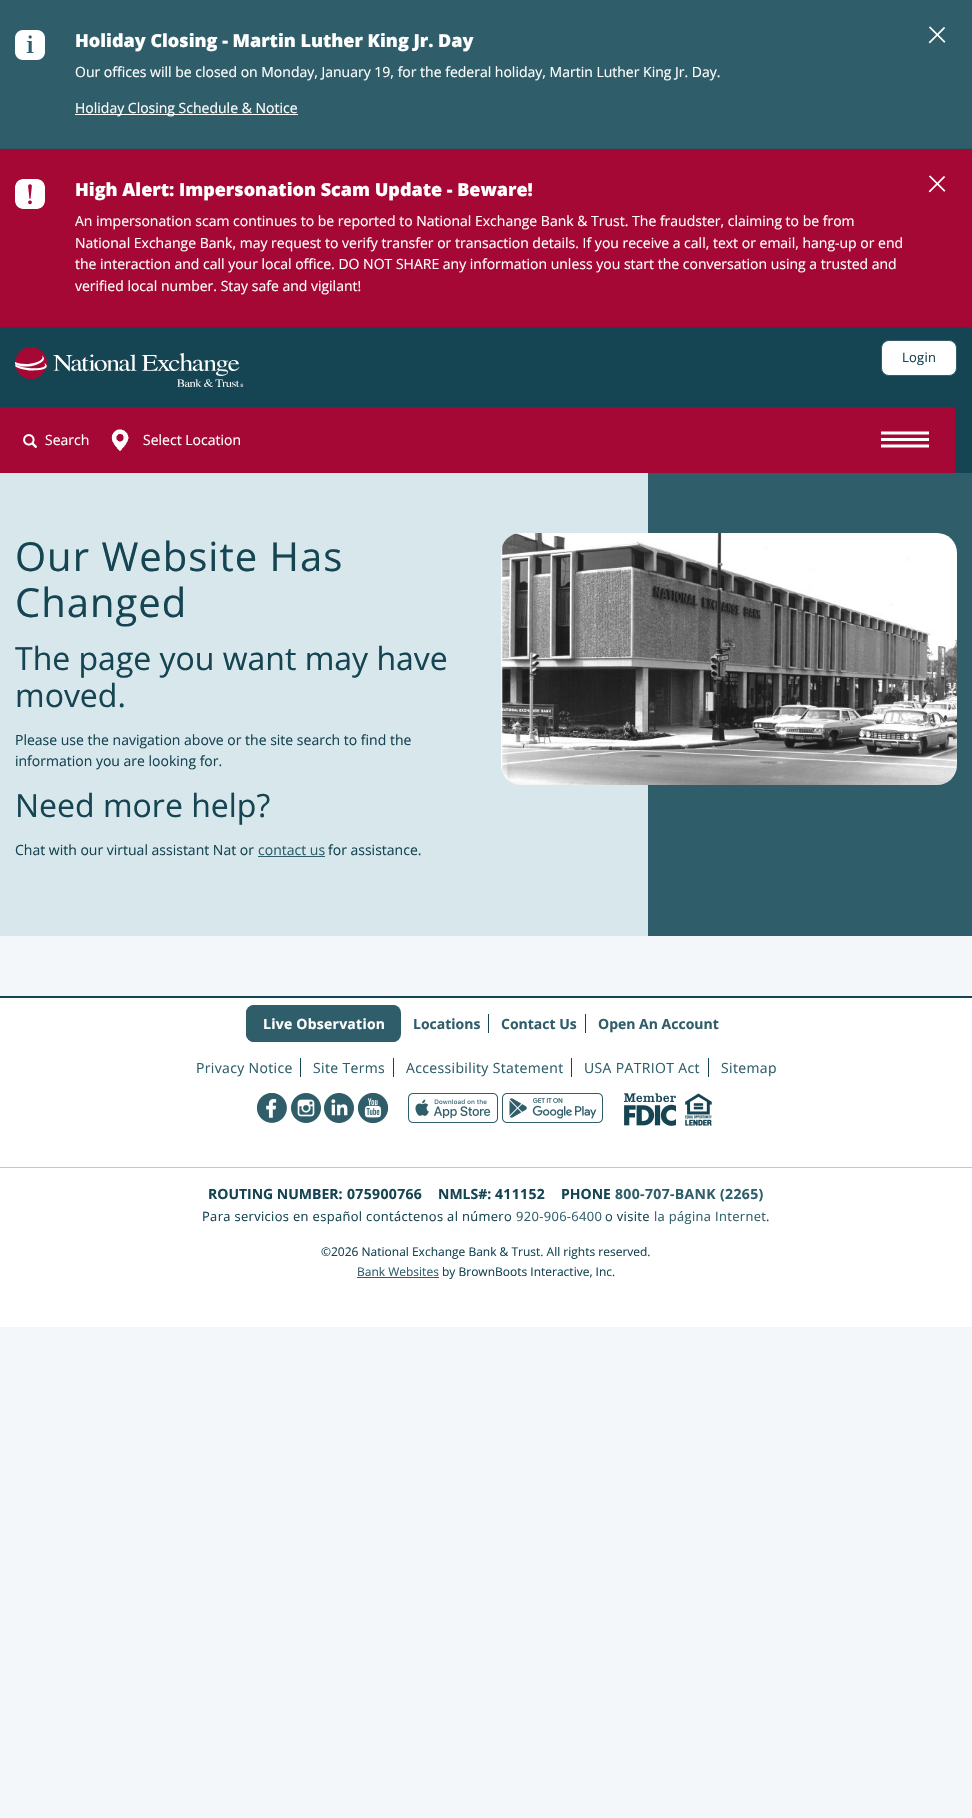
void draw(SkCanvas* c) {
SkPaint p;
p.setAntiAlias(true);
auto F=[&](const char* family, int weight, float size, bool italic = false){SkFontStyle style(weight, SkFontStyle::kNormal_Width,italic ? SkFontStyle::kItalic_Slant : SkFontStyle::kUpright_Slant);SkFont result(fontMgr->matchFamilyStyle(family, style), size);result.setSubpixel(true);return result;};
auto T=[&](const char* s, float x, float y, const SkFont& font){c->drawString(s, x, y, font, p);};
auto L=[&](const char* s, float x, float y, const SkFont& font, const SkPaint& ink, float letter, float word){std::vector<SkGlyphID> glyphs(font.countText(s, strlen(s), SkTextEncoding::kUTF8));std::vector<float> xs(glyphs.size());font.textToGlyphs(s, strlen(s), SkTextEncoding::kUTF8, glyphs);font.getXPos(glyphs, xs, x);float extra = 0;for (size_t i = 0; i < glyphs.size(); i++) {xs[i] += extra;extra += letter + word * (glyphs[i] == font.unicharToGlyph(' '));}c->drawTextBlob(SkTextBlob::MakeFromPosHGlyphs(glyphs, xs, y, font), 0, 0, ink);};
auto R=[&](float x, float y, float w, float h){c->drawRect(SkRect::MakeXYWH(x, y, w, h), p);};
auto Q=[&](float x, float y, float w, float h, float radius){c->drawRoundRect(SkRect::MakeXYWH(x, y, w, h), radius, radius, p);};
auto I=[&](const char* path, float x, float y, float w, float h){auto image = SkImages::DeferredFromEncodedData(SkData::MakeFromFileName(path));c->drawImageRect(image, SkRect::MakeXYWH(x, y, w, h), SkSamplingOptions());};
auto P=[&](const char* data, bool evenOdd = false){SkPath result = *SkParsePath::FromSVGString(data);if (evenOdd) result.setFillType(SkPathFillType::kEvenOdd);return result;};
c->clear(0xfff3f7f9);
p.setColor(0xff2f5e6a);
R(0,0,972,149);
I("1.png",15,30,30,30);
auto f1 = F("Open Sans",800,18);
p.setColor(0xffffffff);
T("Holiday Closing - Martin Luther King Jr. Day",75,47,f1);
auto f2 = F("Open Sans",400,14);
T("Our offices will be closed on Monday, January 19, for the federal holiday, Martin Luther King Jr. Day.",75,77,f2);
R(75,114,223,1);
T("Holiday Closing Schedule & Notice",75,113,f2);
I("2.png",928,26,18,18);
p.setColor(0x40000000);
p.setMaskFilter(SkMaskFilter::MakeBlur(kNormal_SkBlurStyle, 2));
c->drawRect(SkRect::MakeXYWH(0,150,972,178),p);
p.setMaskFilter(nullptr);
p.setColor(0xffa50834);
R(0,149,972,178);
I("3.png",15,179,30,30);
p.setColor(0xffffffff);
T("High Alert: Impersonation Scam Update - Beware!",75,196,f1);
T("An impersonation scam continues to be reported to National Exchange Bank & Trust. The fraudster, claiming to be from",75,226,f2);
T("National Exchange Bank, may request to verify transfer or transaction details. If you receive a call, text or email, hang-up or end",75,248,f2);
T("the interaction and call your local office. DO NOT SHARE any information unless you start the conversation using a trusted and",75,269,f2);
T("verified local number. Stay safe and vigilant!",75,291,f2);
I("4.png",928,175,18,18);
p.setColor(0xff154552);
R(0,327,972,146);
I("5.png",15,347,229,40);
p.setColor(0xffffffff);
c->drawRoundRect(SkRect::MakeXYWH(881.5,340.5,75,35),7.5,7.5,p);
p.setStroke(true);
p.setStrokeWidth(1);
p.setColor(0xff2f5e6a);
c->drawRoundRect(SkRect::MakeXYWH(881.5,340.5,75,35),7.5,7.5,p);
auto f3 = F("Open Sans",400,13);
p.setStroke(false);
p.setColor(0xff154552);
L("Login",902,362,f3,p,.25,0);
p.setColor(0xffa50834);
R(0,407,955,66);
I("6.png",23,434,15,14);
p.setColor(0xffffffff);
T("Search",45,445,f2);
I("7.png",111,429,18,22);
T("Select Location",143,445,f2);
p.setStroke(true);
p.setStrokeWidth(2.9);
c->drawPath(P("M881 446h48m-48-6.5h48m-48-6.5h48"),p);
p.setStroke(false);
p.setColor(0xffd7e7eb);
R(0,473,648,463);
p.setColor(0xff2f5e6a);
R(648,473,324,463);
auto f4 = F("Open Sans",400,40);
p.setColor(0xff154552);
L("Our Website Has",15,571,f4,p,1,0);
L("Changed",15,617,f4,p,1,0);
auto f5 = F("Open Sans",400,32);
T("The page you want may have",15,670,f5);
T("moved.",15,707,f5);
T("Please use the navigation above or the site search to find the",15,745,f2);
T("information you are looking for.",15,766,f2);
T("Need more help?",15,817,f5);
T("Chat with our virtual assistant Nat or",15,855,f2);
p.setColor(0xff2f5e6a);
T("contact us",258,855,f2);
R(258,856,67,1);
p.setColor(0xff154552);
T("for assistance.",328,855,f2);
I("8.png",501,533,456,252);
p.setColor(0xffffffff);
R(0,998,972,329);
p.setColor(0xff154552);
R(0,996,972,2);
p.setColor(0xff9dd5e3);
R(0,1167,972,1);
p.setColor(0xff2f5e6a);
Q(246,1005,155,37,8);
c->drawPath(P("M254 1005h139c4 0 8 4 8 8v21c0 4-4 8-8 8h-139c-4 0-8-4-8-8v-21c0-4 4-8 8-8zm0 1h139c4 0 8 3 8 7v21c0 4-4 7-8 7h-139c-4 0-7-3-7-7v-21c0-4 3-7 7-7z",true),p);
auto f6 = F("Open Sans",700,14);
p.setColor(0xffffffff);
L("Live Observation",263,1029,f6,p,.25,0);
p.setColor(0xff154552);
R(488,1014,1,19);
p.setColor(0xff2f5e6a);
T("Locations",413,1029,f6);
p.setColor(0xff154552);
R(585,1014,1,19);
p.setColor(0xff2f5e6a);
T("Contact Us",501,1029,f6);
T("Open An Account",598,1029,f6);
p.setColor(0xff154552);
R(300,1058,1,19);
p.setColor(0xff2f5e6a);
L("Privacy Notice",196,1073,f2,p,.35,0);
p.setColor(0xff154552);
R(393,1058,1,19);
p.setColor(0xff2f5e6a);
L("Site Terms",313,1073,f2,p,.35,0);
p.setColor(0xff154552);
R(571,1058,1,19);
p.setColor(0xff2f5e6a);
L("Accessibility Statement",406,1073,f2,p,.35,0);
p.setColor(0xff154552);
R(708,1058,1,19);
p.setColor(0xff2f5e6a);
L("USA PATRIOT Act",584,1073,f2,p,.35,0);
L("Sitemap",721,1073,f2,p,.35,0);
I("9.png",257,1093,30,30);
I("10.png",291,1093,30,30);
I("11.png",324,1093,30,30);
I("12.png",358,1093,30,30);
I("13.png",408,1093,90,30);
I("14.png",502,1093,101,30);
I("15.png",624,1093,52,33);
I("16.png",685,1093,27,33);
p.setColor(0xff154552);
T("ROUTING NUMBER:",208,1199,f6);
L("075900766",347,1199,f6,p,.35,0);
T("NMLS#:",438,1199,f6);
L("411152",495,1199,f6,p,.35,0);
T("PHONE",561,1199,f6);
p.setColor(0xff2f5e6a);
L("800-707-BANK (2265)",615,1199,f6,p,.35,0);
auto f7 = F("Open Sans",400,12.9);
p.setColor(0xff154552);
L("Para servicios en español contáctenos al número",202,1221,f7,p,.35,0);
p.setColor(0xff2f5e6a);
L("920-906-6400",516,1221,f7,p,.35,0);
p.setColor(0xff154552);
L("o visite",605,1221,f7,p,.35,0);
p.setColor(0xff2f5e6a);
L("la página Internet",654,1221,f7,p,.35,0);
p.setColor(0xff154552);
L(".",766,1221,f7,p,.35,0);
auto f8 = F("Open Sans",400,12);
T("©2026 National Exchange Bank & Trust. All rights reserved.",321,1256,f8);
p.setColor(0xff2f5e6a);
T("Bank Websites",357,1276,f8);
R(357,1277,82,1);
p.setColor(0xff154552);
T("by BrownBoots Interactive, Inc.",442,1276,f8);
}
